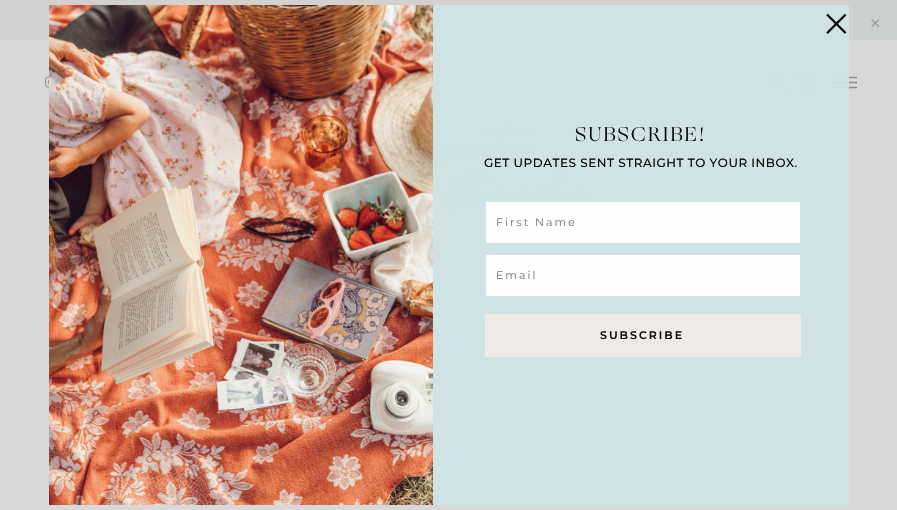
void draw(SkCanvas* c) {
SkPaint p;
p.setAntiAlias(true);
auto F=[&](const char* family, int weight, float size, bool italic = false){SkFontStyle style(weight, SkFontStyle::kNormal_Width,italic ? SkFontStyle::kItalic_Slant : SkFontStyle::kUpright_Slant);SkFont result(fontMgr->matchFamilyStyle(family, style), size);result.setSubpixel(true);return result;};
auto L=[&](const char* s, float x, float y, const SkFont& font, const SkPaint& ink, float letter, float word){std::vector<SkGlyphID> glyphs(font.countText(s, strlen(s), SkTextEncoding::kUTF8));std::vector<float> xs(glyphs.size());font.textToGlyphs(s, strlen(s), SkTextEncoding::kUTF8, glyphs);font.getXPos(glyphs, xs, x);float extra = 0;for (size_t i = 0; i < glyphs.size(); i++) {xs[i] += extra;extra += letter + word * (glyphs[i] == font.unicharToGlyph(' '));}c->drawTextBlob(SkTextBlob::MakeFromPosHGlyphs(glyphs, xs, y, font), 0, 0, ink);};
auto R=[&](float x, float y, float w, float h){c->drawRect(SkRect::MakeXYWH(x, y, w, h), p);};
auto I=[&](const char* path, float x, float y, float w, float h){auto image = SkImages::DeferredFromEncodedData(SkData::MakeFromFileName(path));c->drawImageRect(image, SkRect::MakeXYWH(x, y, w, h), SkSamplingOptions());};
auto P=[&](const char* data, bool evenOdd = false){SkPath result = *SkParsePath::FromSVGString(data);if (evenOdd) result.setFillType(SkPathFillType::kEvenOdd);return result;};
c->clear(0xffd8d8d8);
p.setColor(0xffd3d1cf);
R(0,0,853,40);
p.setColor(0xffcad0d0);
R(853,0,44,40);
I("1.png",871,19,9,9);
I("2.png",45,76,12,12);
I("3.png",73,75,13,14);
I("4.png",103,75,15,15);
I("5.png",771,75,15,15);
I("6.png",797,74,15,15);
p.setStroke(true);
p.setStrokeWidth(1.5);
p.setColor(0xff8e8e8e);
c->drawPath(P("M832 77.5h25m-25 5h25m-25 5h25"),p);
I("7.png",300,125,297,100);
p.setStroke(false);
p.setColor(0xffcad0d0);
R(54,407,789,1);
R(54,493,789,1);
p.setColor(0xf2cfe3e5);
R(49,5,800,500);
I("8.png",826,13,21,21);
I("9.png",49,5,384,500);
auto f1 = F("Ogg",400,20);
p.setColor(0xff0c0c0c);
L("SUBSCRIBE!",575,141,f1,p,2,0);
auto f2 = F("Montserrat",500,12);
L("GET UPDATES SENT STRAIGHT TO YOUR INBOX.",484,167,f2,p,.5,0);
p.setColor(0xf2ffffff);
c->drawRect(SkRect::MakeXYWH(485.5,201.5,315,42),p);
p.setStroke(true);
p.setStrokeWidth(1);
p.setColor(0xffd1e4e6);
c->drawRect(SkRect::MakeXYWH(485.5,201.5,315,42),p);
auto f3 = F("Montserrat",400,11);
p.setStroke(false);
p.setColor(0xff7b7b7c);
L("First Name",496,226,f3,p,2,0);
p.setColor(0xf2ffffff);
R(486,255,314,41);
p.setColor(0xff7b7b7c);
L("Email",496,279,f3,p,2,0);
p.setColor(0xf2efebe7);
c->drawRect(SkRect::MakeXYWH(486,315,314,41),p);
p.setStroke(true);
p.setStrokeWidth(2);
p.setColor(0xffefebe7);
c->drawRect(SkRect::MakeXYWH(486,315,314,41),p);
auto f4 = F("Montserrat",600,11);
p.setStroke(false);
p.setColor(0xff0c0c0c);
L("SUBSCRIBE",600,339,f4,p,2,0);
}
